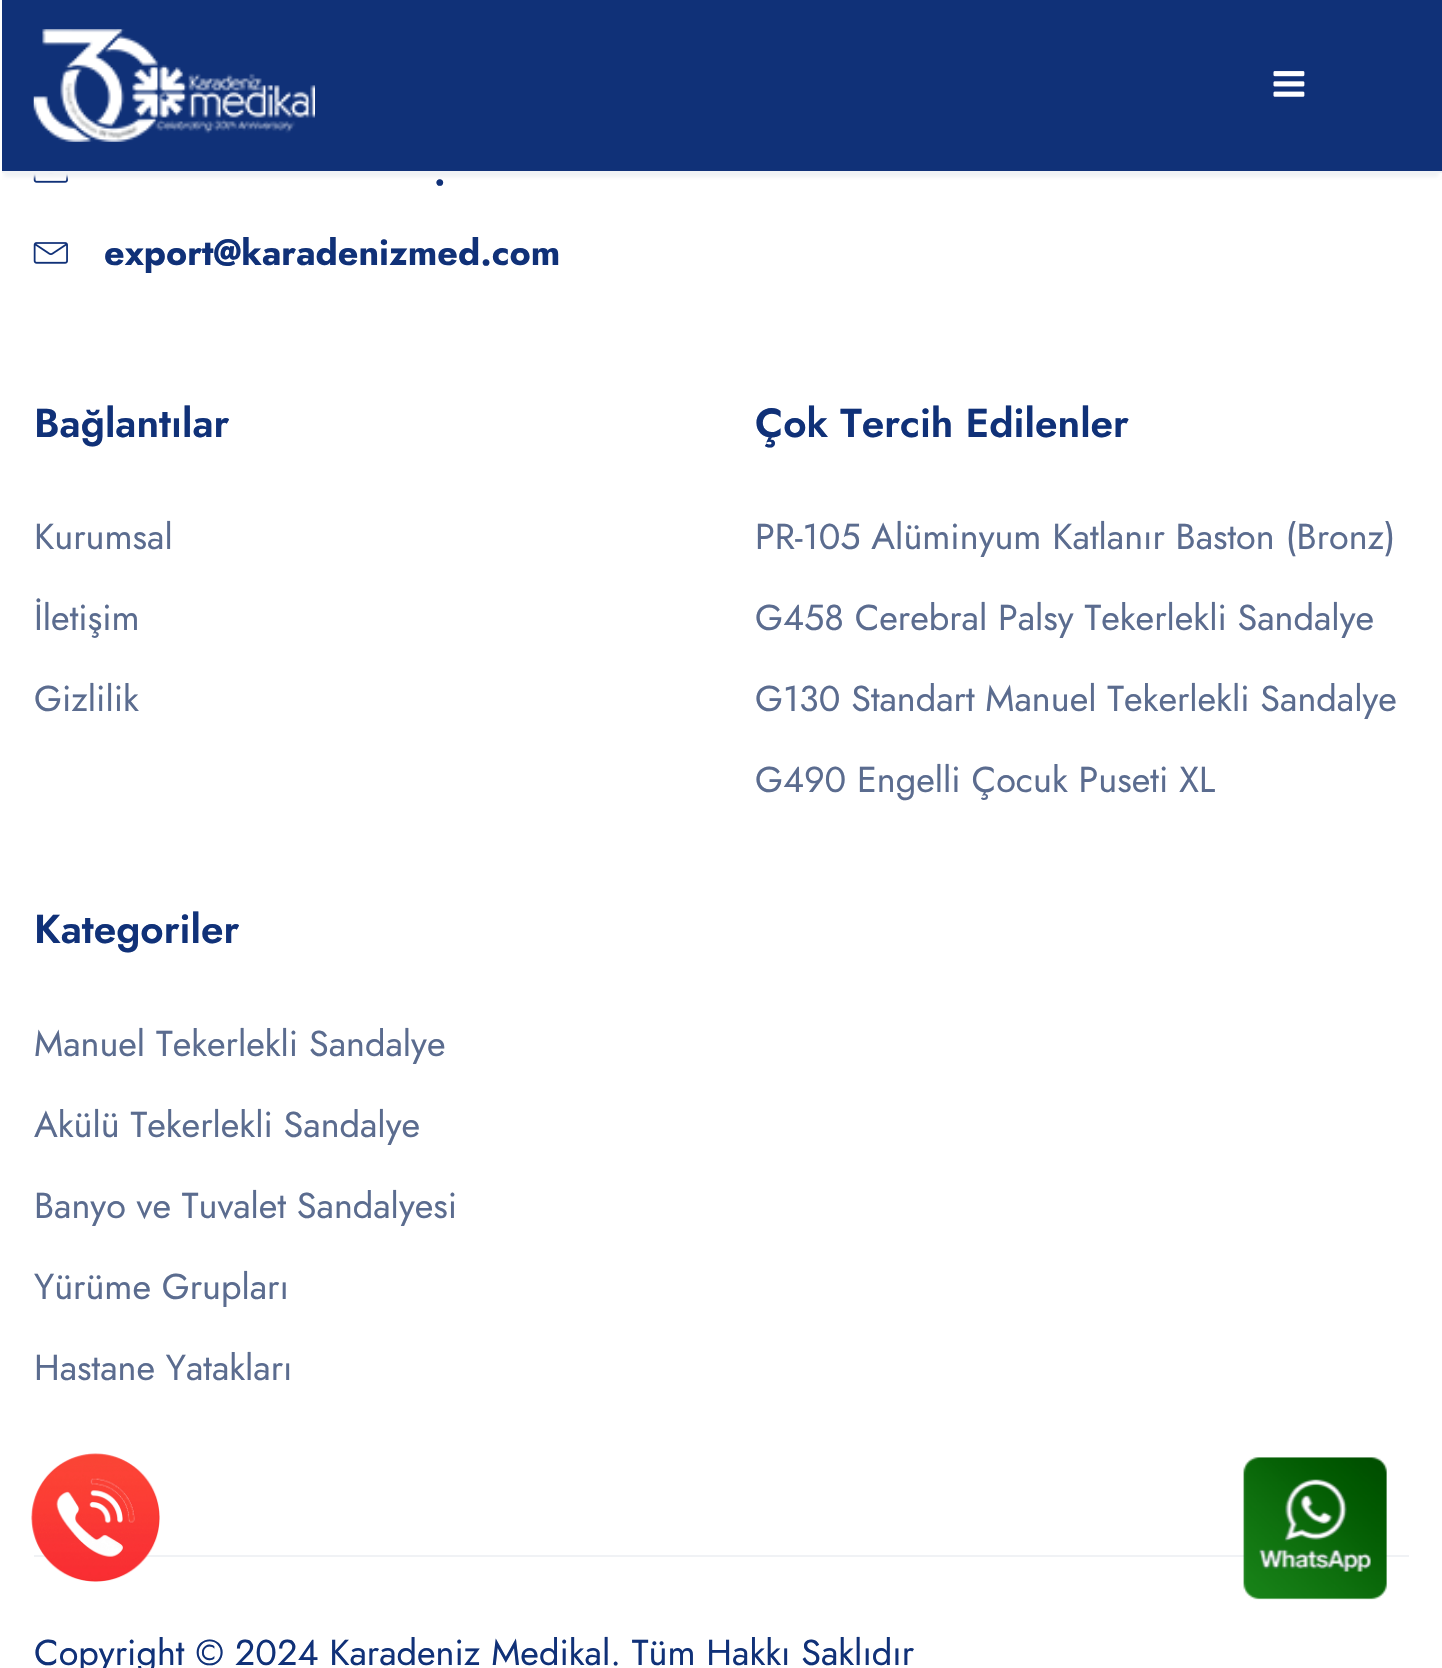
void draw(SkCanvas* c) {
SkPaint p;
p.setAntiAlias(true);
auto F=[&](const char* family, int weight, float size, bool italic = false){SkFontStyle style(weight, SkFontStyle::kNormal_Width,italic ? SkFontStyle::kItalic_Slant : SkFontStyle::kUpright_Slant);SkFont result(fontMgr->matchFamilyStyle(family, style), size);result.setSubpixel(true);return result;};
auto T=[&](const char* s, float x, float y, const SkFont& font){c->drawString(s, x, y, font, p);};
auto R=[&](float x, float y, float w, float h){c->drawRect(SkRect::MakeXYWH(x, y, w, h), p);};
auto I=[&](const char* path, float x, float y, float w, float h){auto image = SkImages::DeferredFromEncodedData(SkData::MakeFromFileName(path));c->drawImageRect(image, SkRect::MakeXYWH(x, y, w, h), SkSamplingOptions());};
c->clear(0xffffffff);
p.setColor(0xfff0f2f5);
R(0,171,1442,2);
p.setColor(0xff103178);
R(2,0,1440,171);
I("3.png",33,173,35,10);
c->save();
c->clipRect(SkRect::MakeXYWH(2,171,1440,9));
p.setColor(0xfff0f2f5);
p.setMaskFilter(SkMaskFilter::MakeBlur(kNormal_SkBlurStyle, 2));
c->drawRect(SkRect::MakeXYWH(5,14,1433,162),p);
p.setMaskFilter(nullptr);
p.setMaskFilter(SkMaskFilter::MakeBlur(kNormal_SkBlurStyle, 2));
c->drawRect(SkRect::MakeXYWH(5,151,1433,25),p);
p.setMaskFilter(nullptr);
c->restore();
p.setColor(0xffffffff);
R(0,171,2,2);
I("1.png",33,29,282,113);
I("2.png",1273,71,32,26);
auto f1 = F("Jost",700,36);
p.setColor(0xff103178);
T(".",434,185,f1);
I("4.png",33,242,35,22);
T("export@karadenizmed.com",104,265,f1);
auto f2 = F("Jost",600,40.5);
T("Bağlantılar",34,437,f2);
auto f3 = F("Jost",400,36);
p.setColor(0xff5b6c8f);
T("Kurumsal",34,549,f3);
T("İletişim",34,630,f3);
T("Gizlilik",34,711,f3);
p.setColor(0xff103178);
T("Çok Tercih Edilenler",755,437,f2);
p.setColor(0xff5b6c8f);
T("PR-105 Alüminyum Katlanır Baston (Bronz)",755,549,f3);
T("G458 Cerebral Palsy Tekerlekli Sandalye",755,630,f3);
T("G130 Standart Manuel Tekerlekli Sandalye",755,711,f3);
T("G490 Engelli Çocuk Puseti XL",755,792,f3);
p.setColor(0xff103178);
T("Kategoriler",34,943,f2);
p.setColor(0xff5b6c8f);
T("Manuel Tekerlekli Sandalye",34,1056,f3);
T("Akülü Tekerlekli Sandalye",34,1137,f3);
T("Banyo ve Tuvalet Sandalyesi",34,1218,f3);
T("Yürüme Grupları",34,1299,f3);
T("Hastane Yatakları",34,1380,f3);
p.setColor(0xfff0f2f5);
R(34,1555,1375,2);
p.setColor(0xff103178);
T("Copyright © 2024 Karadeniz Medikal. Tüm Hakkı Saklıdır",34,1665,f3);
I("5.png",31,1453,129,129);
I("6.png",1243,1457,144,143);
}
